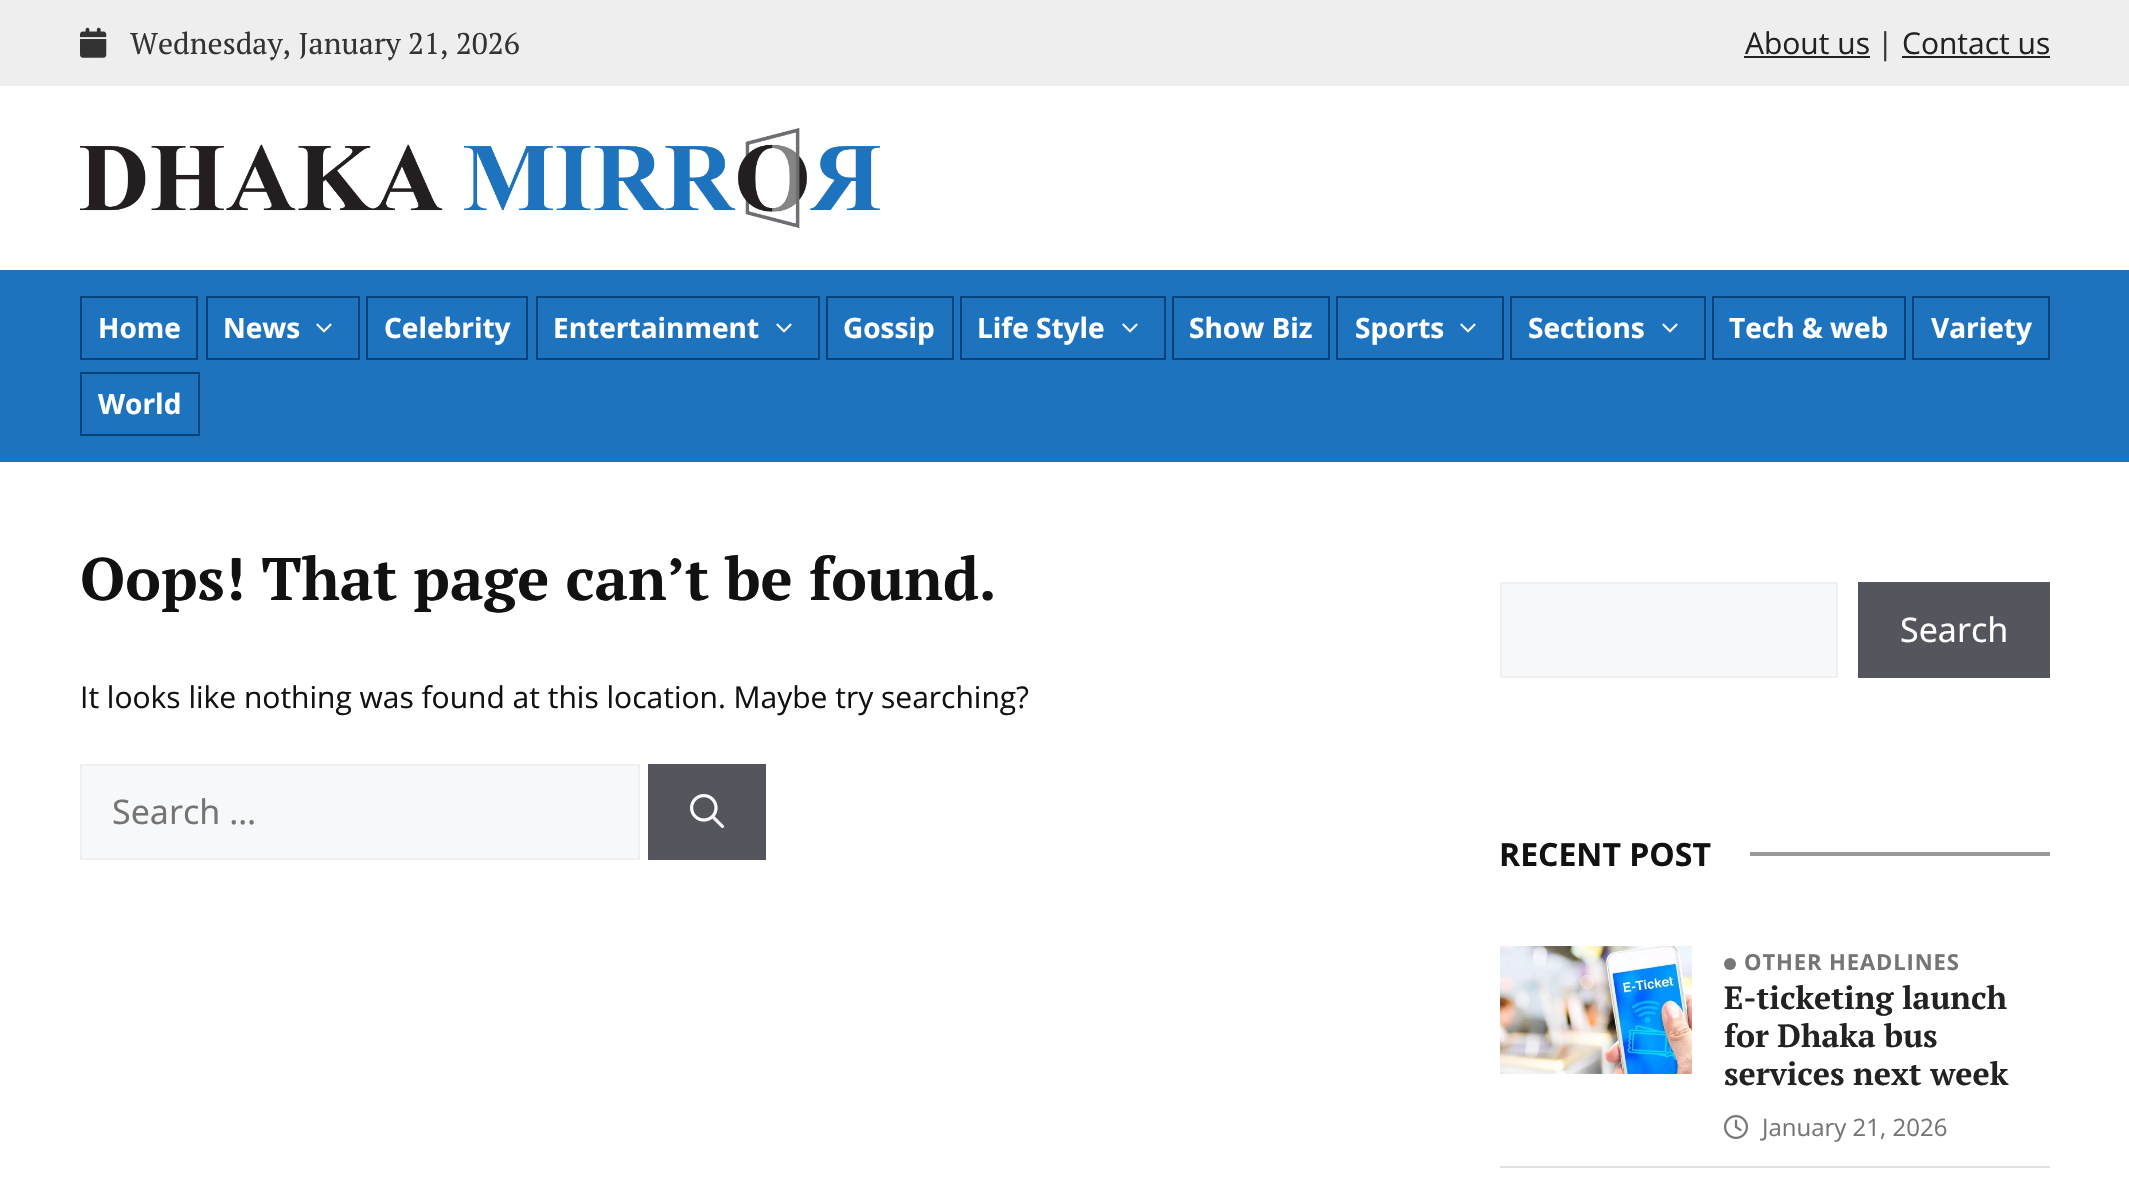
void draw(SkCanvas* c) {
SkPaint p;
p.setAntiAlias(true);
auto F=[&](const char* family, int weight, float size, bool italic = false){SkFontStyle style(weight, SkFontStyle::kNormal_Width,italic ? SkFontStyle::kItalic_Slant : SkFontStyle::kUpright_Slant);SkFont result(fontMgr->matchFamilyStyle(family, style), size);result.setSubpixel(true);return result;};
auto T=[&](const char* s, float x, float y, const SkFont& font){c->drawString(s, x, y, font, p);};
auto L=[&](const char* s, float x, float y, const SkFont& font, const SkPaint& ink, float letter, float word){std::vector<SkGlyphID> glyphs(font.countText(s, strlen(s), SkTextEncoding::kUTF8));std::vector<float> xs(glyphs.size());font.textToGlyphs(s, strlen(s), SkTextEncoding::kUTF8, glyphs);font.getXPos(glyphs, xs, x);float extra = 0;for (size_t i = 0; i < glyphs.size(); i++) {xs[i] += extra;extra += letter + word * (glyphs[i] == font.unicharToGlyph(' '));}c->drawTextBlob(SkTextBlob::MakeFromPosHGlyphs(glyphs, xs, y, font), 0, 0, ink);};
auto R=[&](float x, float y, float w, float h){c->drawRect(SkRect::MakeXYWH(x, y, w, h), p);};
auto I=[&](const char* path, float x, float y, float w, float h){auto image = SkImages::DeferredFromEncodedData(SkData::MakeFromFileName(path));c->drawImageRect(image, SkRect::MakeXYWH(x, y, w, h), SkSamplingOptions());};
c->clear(0xffeeeeee);
I("1.png",80,27,27,31);
auto f1 = F("PT Serif",400,30);
p.setColor(0xff333333);
T("Wednesday, January 21, 2026",130,54,f1);
auto f2 = F("Open Sans",400,30);
p.setColor(0xff222222);
T("About us",1745,54,f2);
R(1744,56,126,2);
p.setColor(0xff333333);
T("|",1877,54,f2);
p.setColor(0xff222222);
T("Contact us",1902,54,f2);
R(1902,56,148,2);
p.setColor(0xffffffff);
R(0,86,2129,184);
I("2.png",80,127,800,102);
p.setColor(0xff1e73be);
R(0,270,2129,192);
p.setStroke(true);
p.setStrokeWidth(2);
p.setColor(0xff064378);
c->drawRect(SkRect::MakeXYWH(81,297,116,62),p);
auto f3 = F("Open Sans",700,28);
p.setStroke(false);
p.setColor(0xffffffff);
T("Home",98,338,f3);
p.setStroke(true);
p.setColor(0xff064378);
c->drawRect(SkRect::MakeXYWH(207,297,152,62),p);
p.setStroke(false);
p.setColor(0xffffffff);
T("News",223,338,f3);
I("3.png",316,323,16,10);
p.setStroke(true);
p.setColor(0xff064378);
c->drawRect(SkRect::MakeXYWH(367,297,160,62),p);
p.setStroke(false);
p.setColor(0xffffffff);
T("Celebrity",384,338,f3);
p.setStroke(true);
p.setColor(0xff064378);
c->drawRect(SkRect::MakeXYWH(537,297,282,62),p);
p.setStroke(false);
p.setColor(0xffffffff);
T("Entertainment",553,338,f3);
I("3.png",776,323,16,10);
p.setStroke(true);
p.setColor(0xff064378);
c->drawRect(SkRect::MakeXYWH(827,297,126,62),p);
p.setStroke(false);
p.setColor(0xffffffff);
T("Gossip",843,338,f3);
p.setStroke(true);
p.setColor(0xff064378);
c->drawRect(SkRect::MakeXYWH(961,297,204,62),p);
p.setStroke(false);
p.setColor(0xffffffff);
T("Life Style",977,338,f3);
I("3.png",1122,323,16,10);
p.setStroke(true);
p.setColor(0xff064378);
c->drawRect(SkRect::MakeXYWH(1173,297,156,62),p);
p.setStroke(false);
p.setColor(0xffffffff);
T("Show Biz",1189,338,f3);
p.setStroke(true);
p.setColor(0xff064378);
c->drawRect(SkRect::MakeXYWH(1337,297,166,62),p);
p.setStroke(false);
p.setColor(0xffffffff);
T("Sports",1355,338,f3);
I("3.png",1460,323,16,10);
p.setStroke(true);
p.setColor(0xff064378);
c->drawRect(SkRect::MakeXYWH(1511,297,194,62),p);
p.setStroke(false);
p.setColor(0xffffffff);
T("Sections",1528,338,f3);
I("3.png",1662,323,16,10);
p.setStroke(true);
p.setColor(0xff064378);
c->drawRect(SkRect::MakeXYWH(1713,297,192,62),p);
p.setStroke(false);
p.setColor(0xffffffff);
T("Tech & web",1729,338,f3);
p.setStroke(true);
p.setColor(0xff064378);
c->drawRect(SkRect::MakeXYWH(1913,297,136,62),p);
p.setStroke(false);
p.setColor(0xffffffff);
T("Variety",1931,338,f3);
p.setStroke(true);
p.setColor(0xff064378);
c->drawRect(SkRect::MakeXYWH(81,373,118,62),p);
p.setStroke(false);
p.setColor(0xffffffff);
T("World",98,414,f3);
R(0,462,2129,723);
auto f4 = F("PT Serif",700,60);
p.setColor(0xff111111);
T("Oops! That page can’t be found.",80,600,f4);
T("It looks like nothing was found at this location. Maybe try searching?",80,708,f2);
p.setColor(0xfff7f8f9);
c->drawRect(SkRect::MakeXYWH(81,765,558,94),p);
p.setStroke(true);
p.setColor(0xfff0f0f0);
c->drawRect(SkRect::MakeXYWH(81,765,558,94),p);
auto f5 = F("Noto Sans",400,34);
p.setStroke(false);
p.setColor(0xff757575);
T("Search …",112,824,f5);
p.setColor(0xff55555e);
R(648,764,118,96);
I("4.png",690,794,34,34);
p.setColor(0xfff7f8f9);
c->drawRect(SkRect::MakeXYWH(1501,583,336,94),p);
p.setStroke(true);
p.setColor(0xfff0f0f0);
c->drawRect(SkRect::MakeXYWH(1501,583,336,94),p);
p.setStroke(false);
p.setColor(0xff55555e);
R(1858,582,192,96);
p.setColor(0xffffffff);
T("Search",1900,642,f5);
auto f6 = F("Open Sans",700,32);
p.setColor(0xff111111);
T("RECENT POST",1499,866,f6);
p.setColor(0xff999999);
R(1750,852,300,4);
p.setColor(0xffdee2e6);
R(1500,1166,550,2);
I("5.png",1500,946,192,128);
p.setColor(0xff777777);
c->drawCircle(1730,964,6,p);
auto f7 = F("Open Sans",700,22);
p.setColor(0xff757575);
L("OTHER HEADLINES",1744,970,f7,p,.9,0);
auto f8 = F("PT Serif",700,32);
p.setColor(0xff222222);
T("E-ticketing launch",1724,1009,f8);
T("for Dhaka bus",1724,1047,f8);
T("services next week",1724,1085,f8);
I("6.png",1724,1115,24,24);
auto f9 = F("Open Sans",400,24);
p.setColor(0xff757575);
T("January 21, 2026",1762,1136,f9);
}
